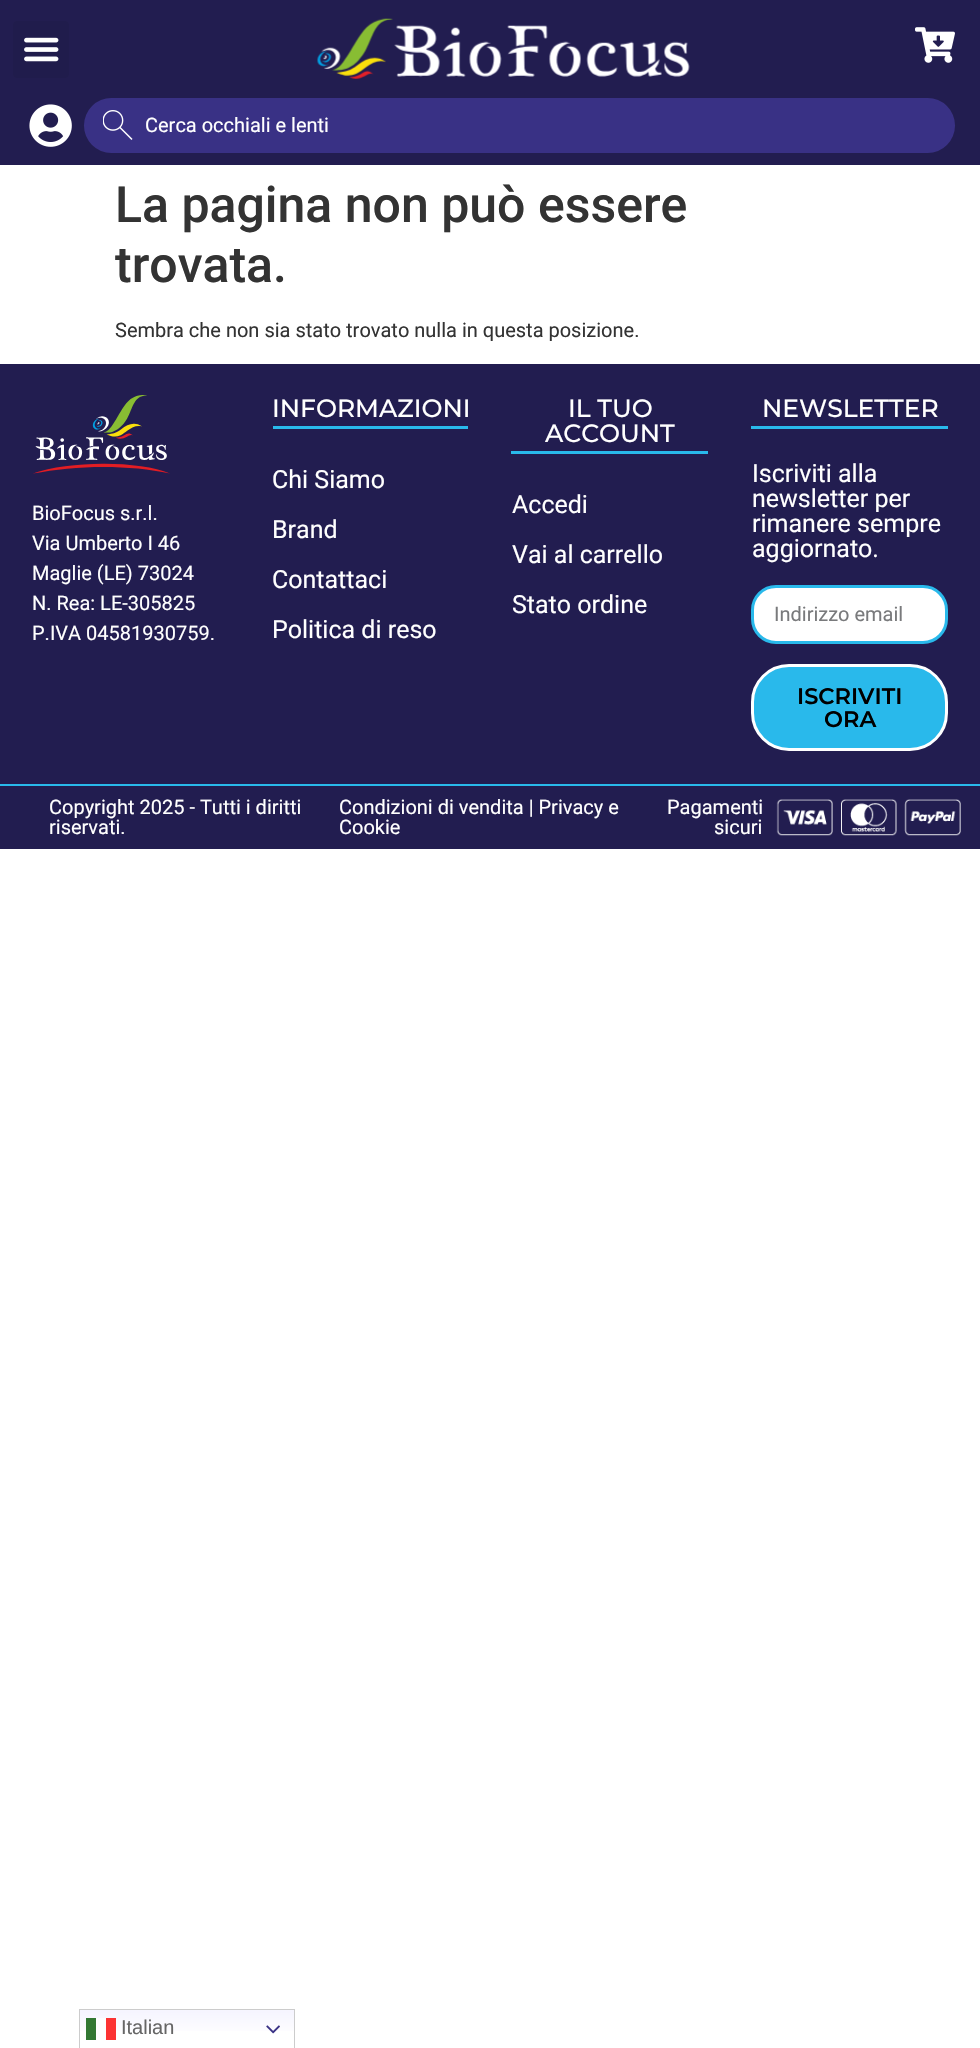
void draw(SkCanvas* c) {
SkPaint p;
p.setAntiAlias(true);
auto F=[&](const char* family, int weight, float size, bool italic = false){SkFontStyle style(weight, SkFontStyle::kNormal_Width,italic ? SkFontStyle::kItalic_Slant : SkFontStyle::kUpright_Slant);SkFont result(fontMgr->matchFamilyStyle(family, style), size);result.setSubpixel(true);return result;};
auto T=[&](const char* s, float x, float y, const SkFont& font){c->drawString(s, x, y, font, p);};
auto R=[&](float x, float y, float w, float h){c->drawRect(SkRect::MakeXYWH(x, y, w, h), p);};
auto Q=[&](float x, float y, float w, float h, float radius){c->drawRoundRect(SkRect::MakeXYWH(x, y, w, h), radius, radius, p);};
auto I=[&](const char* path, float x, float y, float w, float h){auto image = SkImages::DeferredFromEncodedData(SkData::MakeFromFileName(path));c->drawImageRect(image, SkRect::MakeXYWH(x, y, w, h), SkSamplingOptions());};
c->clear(0xffffffff);
p.setColor(0xff221d50);
R(0,0,980,165);
p.setColor(0xff201c4c);
Q(13,21,56,57,4);
I("1.png",24,37,35,25);
I("2.png",317,18,373,61);
I("3.png",915,27,40,36);
I("4.png",29,104,43,43);
p.setColor(0xff393185);
Q(84,98,871,55,27.5);
I("5.png",103,110,30,30);
auto f1 = F("Roboto",400,20);
p.setColor(0xffffffff);
T("Cerca occhiali e lenti",145,132,f1);
auto f2 = F("Roboto",500,50);
p.setColor(0xff333333);
T("La pagina non può essere",115,222,f2);
T("trovata.",115,282,f2);
T("Sembra che non sia stato trovato nulla in questa posizione.",115,337,f1);
p.setColor(0xff221d50);
R(0,364,980,420);
p.setColor(0xff29b9eb);
R(0,784,980,2);
I("6.png",33,395,137,79);
p.setColor(0xffffffff);
T("BioFocus s.r.l.",32,520,f1);
T("Via Umberto I 46",32,550,f1);
T("Maglie (LE) 73024",32,580,f1);
T("N. Rea: LE-305825",32,610,f1);
T("P.IVA 04581930759.",32,640,f1);
auto f3 = F("Montserrat",500,25);
T("INFORMAZIONI",272,417,f3);
p.setColor(0xff29b9eb);
R(273,426,195,3);
auto f4 = F("Roboto",400,25);
p.setColor(0xffffffff);
T("Chi Siamo",272,488,f4);
T("Brand",272,538,f4);
T("Contattaci",272,588,f4);
T("Politica di reso",272,638,f4);
T("IL TUO",568,417,f3);
T("ACCOUNT",545,442,f3);
p.setColor(0xff29b9eb);
R(511,451,197,3);
p.setColor(0xffffffff);
T("Accedi",512,513,f4);
T("Vai al carrello",512,563,f4);
T("Stato ordine",512,613,f4);
T("NEWSLETTER",762,417,f3);
p.setColor(0xff29b9eb);
R(751,426,197,3);
p.setColor(0xffffffff);
T("Iscriviti alla",752,482,f4);
T("newsletter per",752,507,f4);
T("rimanere sempre",752,532,f4);
T("aggiornato.",752,557,f4);
c->drawRoundRect(SkRect::MakeXYWH(752.5,586.5,194,56),23.5,23.5,p);
p.setStroke(true);
p.setStrokeWidth(3);
p.setColor(0xff29b9eb);
c->drawRoundRect(SkRect::MakeXYWH(752.5,586.5,194,56),23.5,23.5,p);
p.setStroke(false);
p.setColor(0xff797a7c);
T("Indirizzo email",774,621,f1);
p.setColor(0xff29b9eb);
c->drawRoundRect(SkRect::MakeXYWH(752.5,665.5,194,84),36.5,36.5,p);
p.setStroke(true);
p.setColor(0xffffffff);
c->drawRoundRect(SkRect::MakeXYWH(752.5,665.5,194,84),36.5,36.5,p);
auto f5 = F("Montserrat",600,22.5);
p.setStroke(false);
p.setColor(0xff000000);
T("ISCRIVITI",797,704,f5);
T("ORA",824,727,f5);
p.setColor(0xff221d50);
R(0,786,980,63);
p.setColor(0xffffffff);
T("Copyright 2025 - Tutti i diritti",49,814,f1);
T("riservati.",49,834,f1);
T("Condizioni di vendita | Privacy e",339,814,f1);
T("Cookie",339,834,f1);
T("Pagamenti",667,814,f1);
T("sicuri",714,834,f1);
I("7.png",776,799,185,37);
{
const SkColor colors[] = {0xfff5f4ff,0xffffffff};
const float stops[] = {0,.7};
const SkPoint ends[] = {{187,2009}, {187,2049}};
p.setShader(SkGradientShader::MakeLinear(ends, colors, stops, 2, SkTileMode::kClamp));
p.setAlpha(255);
}
R(80,2010,214,21);
{
const SkColor colors[] = {0xfffdfdff,0xffffffff};
const float stops[] = {0,.7};
const SkPoint ends[] = {{187,2009}, {187,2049}};
p.setShader(SkGradientShader::MakeLinear(ends, colors, stops, 2, SkTileMode::kClamp));
p.setAlpha(255);
}
R(96,2018,10,13);
p.setStroke(true);
p.setStrokeWidth(1);
p.setShader(nullptr);
p.setColor(0xffcccccc);
c->drawRect(SkRect::MakeXYWH(79.5,2009.5,215,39),p);
p.setStroke(false);
p.setColor(0xff337833);
R(86,2018,10,22);
p.setColor(0xfffc3333);
R(106,2018,10,22);
auto f6 = F("Liberation Sans",400,20);
p.setColor(0xff666666);
T("Italian",121,2034,f6);
I("8.png",266,2025,14,9);
}
